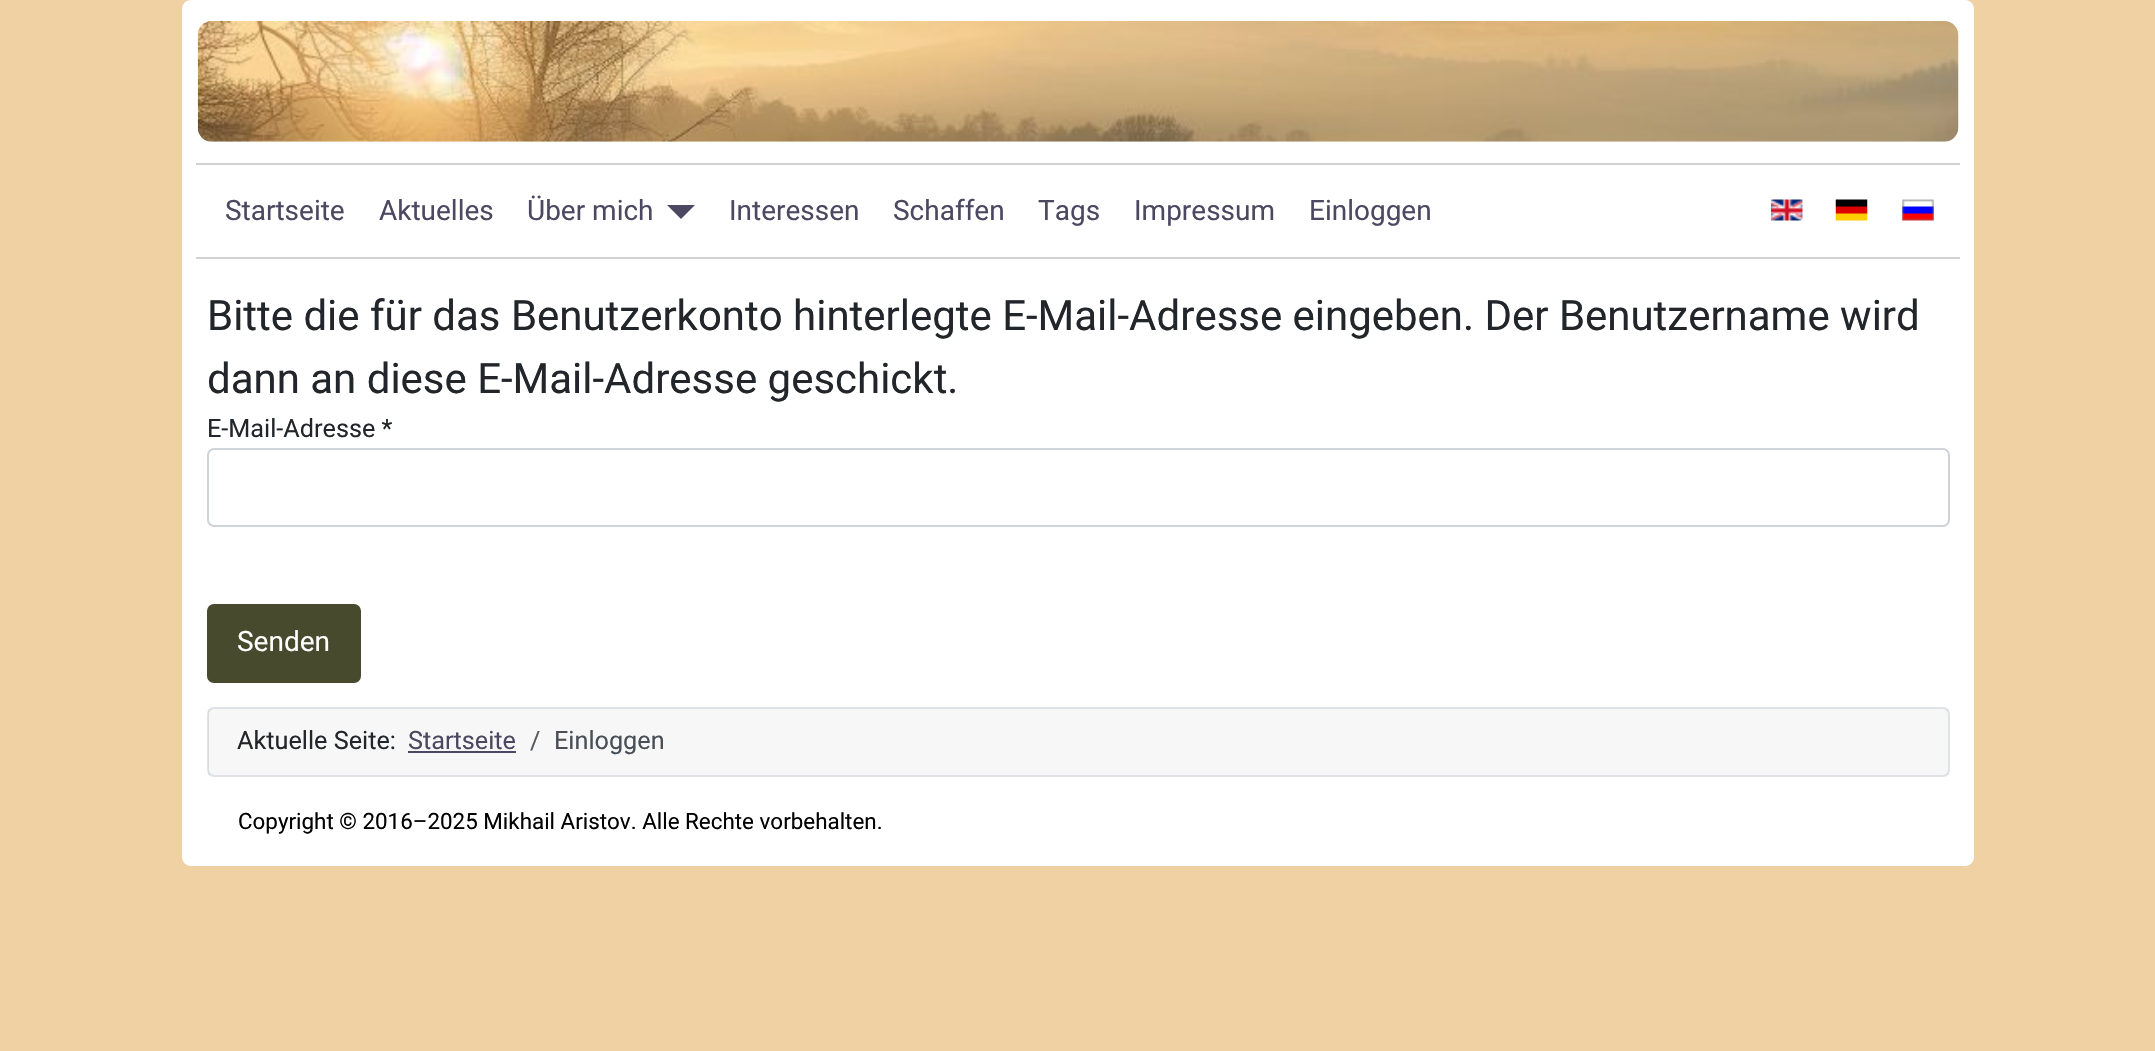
void draw(SkCanvas* c) {
SkPaint p;
p.setAntiAlias(true);
auto F=[&](const char* family, int weight, float size, bool italic = false){SkFontStyle style(weight, SkFontStyle::kNormal_Width,italic ? SkFontStyle::kItalic_Slant : SkFontStyle::kUpright_Slant);SkFont result(fontMgr->matchFamilyStyle(family, style), size);result.setSubpixel(true);return result;};
auto T=[&](const char* s, float x, float y, const SkFont& font){c->drawString(s, x, y, font, p);};
auto R=[&](float x, float y, float w, float h){c->drawRect(SkRect::MakeXYWH(x, y, w, h), p);};
auto I=[&](const char* path, float x, float y, float w, float h){auto image = SkImages::DeferredFromEncodedData(SkData::MakeFromFileName(path));c->drawImageRect(image, SkRect::MakeXYWH(x, y, w, h), SkSamplingOptions());};
auto P=[&](const char* data, bool evenOdd = false){SkPath result = *SkParsePath::FromSVGString(data);if (evenOdd) result.setFillType(SkPathFillType::kEvenOdd);return result;};
c->clear(0xffefd1a4);
p.setColor(0xffffffff);
c->drawPath(P("M191 0h1774c5 0 9 4 9 9v250h-1792v-250c0-5 4-9 9-9z"),p);
I("1.png",197,21,1762,121);
p.setColor(0xffd2d2d2);
R(196,163,1764,2);
R(196,257,1764,2);
auto f1 = F("Roboto",400,28);
p.setColor(0xff4d4861);
T("Startseite",225,220,f1);
T("Aktuelles",379,220,f1);
T("Über mich",527,220,f1);
c->drawPath(P("M667 205h28l-14 14z"),p);
T("Interessen",729,220,f1);
T("Schaffen",893,220,f1);
T("Tags",1038,220,f1);
T("Impressum",1134,220,f1);
T("Einloggen",1309,220,f1);
I("2.png",1771,199,32,22);
I("3.png",1835,199,33,22);
I("4.png",1902,199,32,22);
p.setColor(0xffffffff);
R(182,259,1792,532);
auto f2 = F("Roboto",400,42);
p.setColor(0xff22262a);
T("Bitte die für das Benutzerkonto hinterlegte E-Mail-Adresse eingeben. Der Benutzername wird",207,330,f2);
T("dann an diese E-Mail-Adresse geschickt.",207,393,f2);
auto f3 = F("Roboto",400,25.25);
T("E-Mail-Adresse *",207,437,f3);
p.setStroke(true);
p.setStrokeWidth(2);
p.setColor(0xffced4da);
c->drawRoundRect(SkRect::MakeXYWH(208,449,1741,77),6,6,p);
p.setStroke(false);
p.setColor(0xff474a2c);
c->drawRoundRect(SkRect::MakeXYWH(208,605,152,77),6,6,p);
p.setStroke(true);
c->drawRoundRect(SkRect::MakeXYWH(208,605,152,77),6,6,p);
p.setStroke(false);
p.setColor(0xffffffff);
T("Senden",237,651,f1);
p.setStroke(true);
p.setColor(0xffdfe3e7);
c->drawRoundRect(SkRect::MakeXYWH(208,708,1741,68),6,6,p);
p.setStroke(false);
p.setColor(0x08000000);
R(208,709,1740,66);
p.setColor(0xff22262a);
T("Aktuelle Seite:",237,749,f3);
p.setColor(0xff4d4861);
T("Startseite",408,749,f3);
R(408,751,108,2);
p.setColor(0xff575a5d);
T("/",530,749,f3);
p.setColor(0xff484f56);
T("Einloggen",554,749,f3);
p.setColor(0xffffffff);
c->drawPath(P("M182 791h1792v66c0 5-4 9-9 9h-1774c-5 0-9-4-9-9z"),p);
auto f4 = F("Roboto",400,22.4);
p.setColor(0xff000000);
T("Copyright © 2016–2025 Mikhail Aristov. Alle Rechte vorbehalten.",238,829,f4);
}
